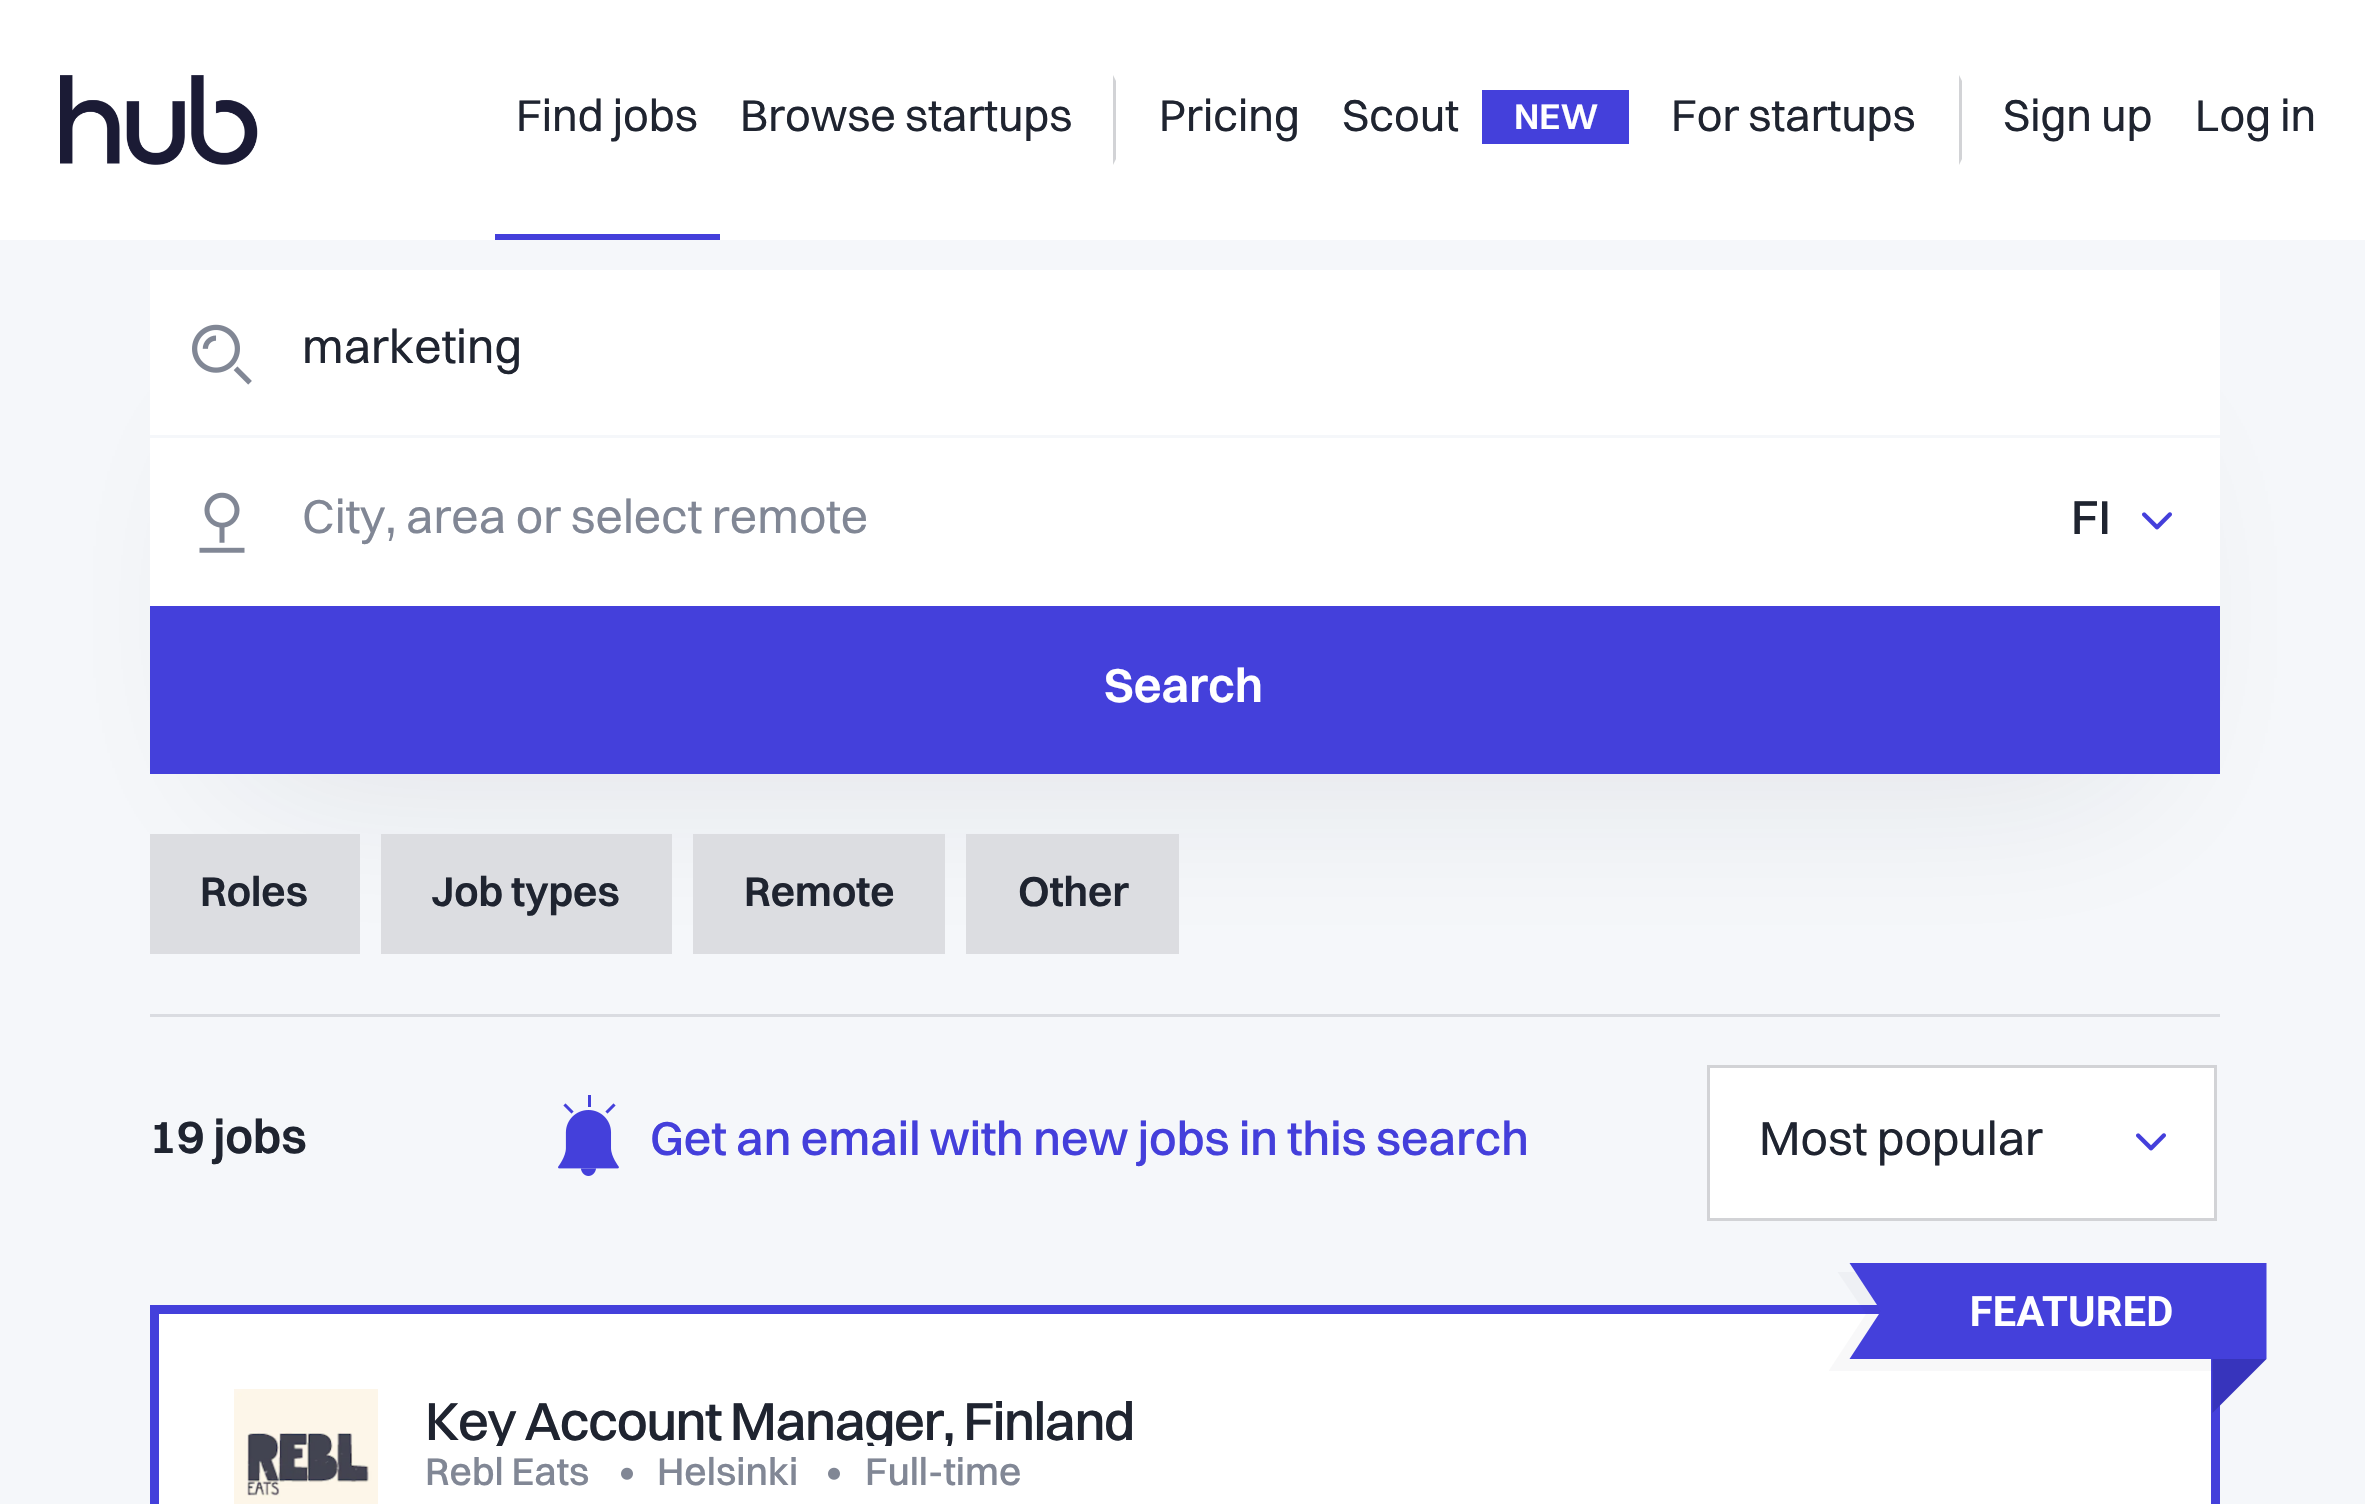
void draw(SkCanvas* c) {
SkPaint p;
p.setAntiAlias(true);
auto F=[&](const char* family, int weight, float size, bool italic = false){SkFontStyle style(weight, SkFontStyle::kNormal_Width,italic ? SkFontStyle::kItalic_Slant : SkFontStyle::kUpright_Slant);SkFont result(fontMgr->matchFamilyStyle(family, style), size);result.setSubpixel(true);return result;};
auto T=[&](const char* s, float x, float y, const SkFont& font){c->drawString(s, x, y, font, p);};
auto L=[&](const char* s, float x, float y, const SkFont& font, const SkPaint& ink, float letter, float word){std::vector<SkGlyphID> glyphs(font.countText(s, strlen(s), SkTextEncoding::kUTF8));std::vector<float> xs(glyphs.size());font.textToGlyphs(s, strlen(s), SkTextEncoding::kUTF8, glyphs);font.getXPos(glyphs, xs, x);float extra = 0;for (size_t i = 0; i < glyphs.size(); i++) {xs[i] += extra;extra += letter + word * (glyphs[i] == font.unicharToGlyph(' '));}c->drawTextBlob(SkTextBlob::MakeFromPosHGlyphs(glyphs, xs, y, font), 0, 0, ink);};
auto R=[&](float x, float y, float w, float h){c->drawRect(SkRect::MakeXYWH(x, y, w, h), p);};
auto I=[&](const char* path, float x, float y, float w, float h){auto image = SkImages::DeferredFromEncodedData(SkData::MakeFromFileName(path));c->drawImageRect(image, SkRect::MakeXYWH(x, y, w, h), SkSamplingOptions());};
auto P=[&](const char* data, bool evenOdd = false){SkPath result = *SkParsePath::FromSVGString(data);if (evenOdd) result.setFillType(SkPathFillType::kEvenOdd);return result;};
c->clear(0xffffffff);
I("1.png",60,75,198,90);
p.setColor(0xfff5f7fa);
R(0,240,2365,1264);
p.setColor(0x1a1f2430);
p.setMaskFilter(SkMaskFilter::MakeBlur(kNormal_SkBlurStyle, 90));
c->drawRect(SkRect::MakeXYWH(240,450,1890,324),p);
p.setMaskFilter(nullptr);
p.setColor(0xff443fdb);
R(495,234,225,6);
auto f1 = F("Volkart",400,45);
p.setColor(0xff1f2430);
T("Find jobs",516,131,f1);
T("Browse startups",740,131,f1);
p.setColor(0xffd2d3d6);
c->drawPath(P("M1113 165v-90l3 6v78z"),p);
p.setColor(0xff1f2430);
T("Pricing",1159,131,f1);
T("Scout",1342,131,f1);
p.setColor(0xff4440db);
R(1482,90,147,54);
auto f2 = F("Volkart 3",400,36);
p.setColor(0xffffffff);
T("NEW",1514,129,f2);
p.setColor(0xff1f2430);
T("For startups",1671,131,f1);
p.setColor(0xffd2d3d6);
c->drawPath(P("M1959 165v-90l3 6v78z"),p);
p.setColor(0xff1f2430);
T("Sign up",2003,131,f1);
T("Log in",2195,131,f1);
p.setColor(0xffffffff);
R(150,270,2070,336);
p.setColor(0xfff5f7fa);
R(150,435,2070,3);
I("2.png",192,324,60,61);
auto f3 = F("Volkart",400,48);
p.setColor(0xff1f2430);
T("marketing",302,363,f3);
I("3.png",199,492,46,61);
p.setColor(0xff818795);
T("City, area or select remote",302,533,f3);
auto f4 = F("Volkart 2",400,48);
p.setColor(0xff1f2430);
T("FI",2071,534,f4);
I("4.png",2142,512,30,18);
p.setColor(0xff4440db);
R(150,606,2070,168);
auto f5 = F("Volkart 3",400,48);
p.setColor(0xffffffff);
T("Search",1104,702,f5);
p.setColor(0xffdcdde1);
R(150,834,210,120);
auto f6 = F("Volkart 3",400,42);
p.setColor(0xff1f2430);
T("Roles",200,906,f6);
p.setColor(0xffdcdde1);
R(381,834,291,120);
p.setColor(0xff1f2430);
T("Job types",431,906,f6);
p.setColor(0xffdcdde1);
R(693,834,252,120);
p.setColor(0xff1f2430);
T("Remote",744,906,f6);
p.setColor(0xffdcdde1);
R(966,834,213,120);
p.setColor(0xff1f2430);
T("Other",1018,906,f6);
p.setColor(0xffdadce1);
R(150,1014,2070,3);
p.setColor(0xff1f2430);
T("19 jobs",149,1153,f5);
I("5.png",558,1095,61,81);
p.setColor(0xff443fdb);
T("Get an email with new jobs in this search",650,1155,f4);
p.setColor(0xffffffff);
c->drawRect(SkRect::MakeXYWH(1708.5,1066.5,507,153),p);
p.setStroke(true);
p.setStrokeWidth(3);
p.setColor(0xffd2d3d6);
c->drawRect(SkRect::MakeXYWH(1708.5,1066.5,507,153),p);
p.setStroke(false);
p.setColor(0xff1f2430);
T("Most popular",1759,1155,f3);
I("4.png",2136,1133,30,18);
p.setColor(0xffffffff);
c->drawRect(SkRect::MakeXYWH(154.5,1309.5,2061,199),p);
p.setStroke(true);
p.setStrokeWidth(9);
p.setColor(0xff4440db);
c->drawRect(SkRect::MakeXYWH(154.5,1309.5,2061,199),p);
I("6.png",1829,1263,438,150);
I("7.png",234,1389,144,115);
c->save();
c->clipRect(SkRect::MakeXYWH(426,1389,708,57));
auto f7 = F("Volkart 2",400,54);
p.setStroke(false);
p.setColor(0xff1f2430);
L("Key Account Manager, Finland",425,1440,f7,p,-1.5,0);
c->restore();
auto f8 = F("Volkart 2",400,39);
p.setColor(0xff818795);
T("Rebl Eats",425,1485,f8);
I("8.png",621,1467,12,13);
T("Helsinki",657,1485,f8);
I("8.png",828,1467,12,13);
T("Full-time",865,1485,f8);
}
